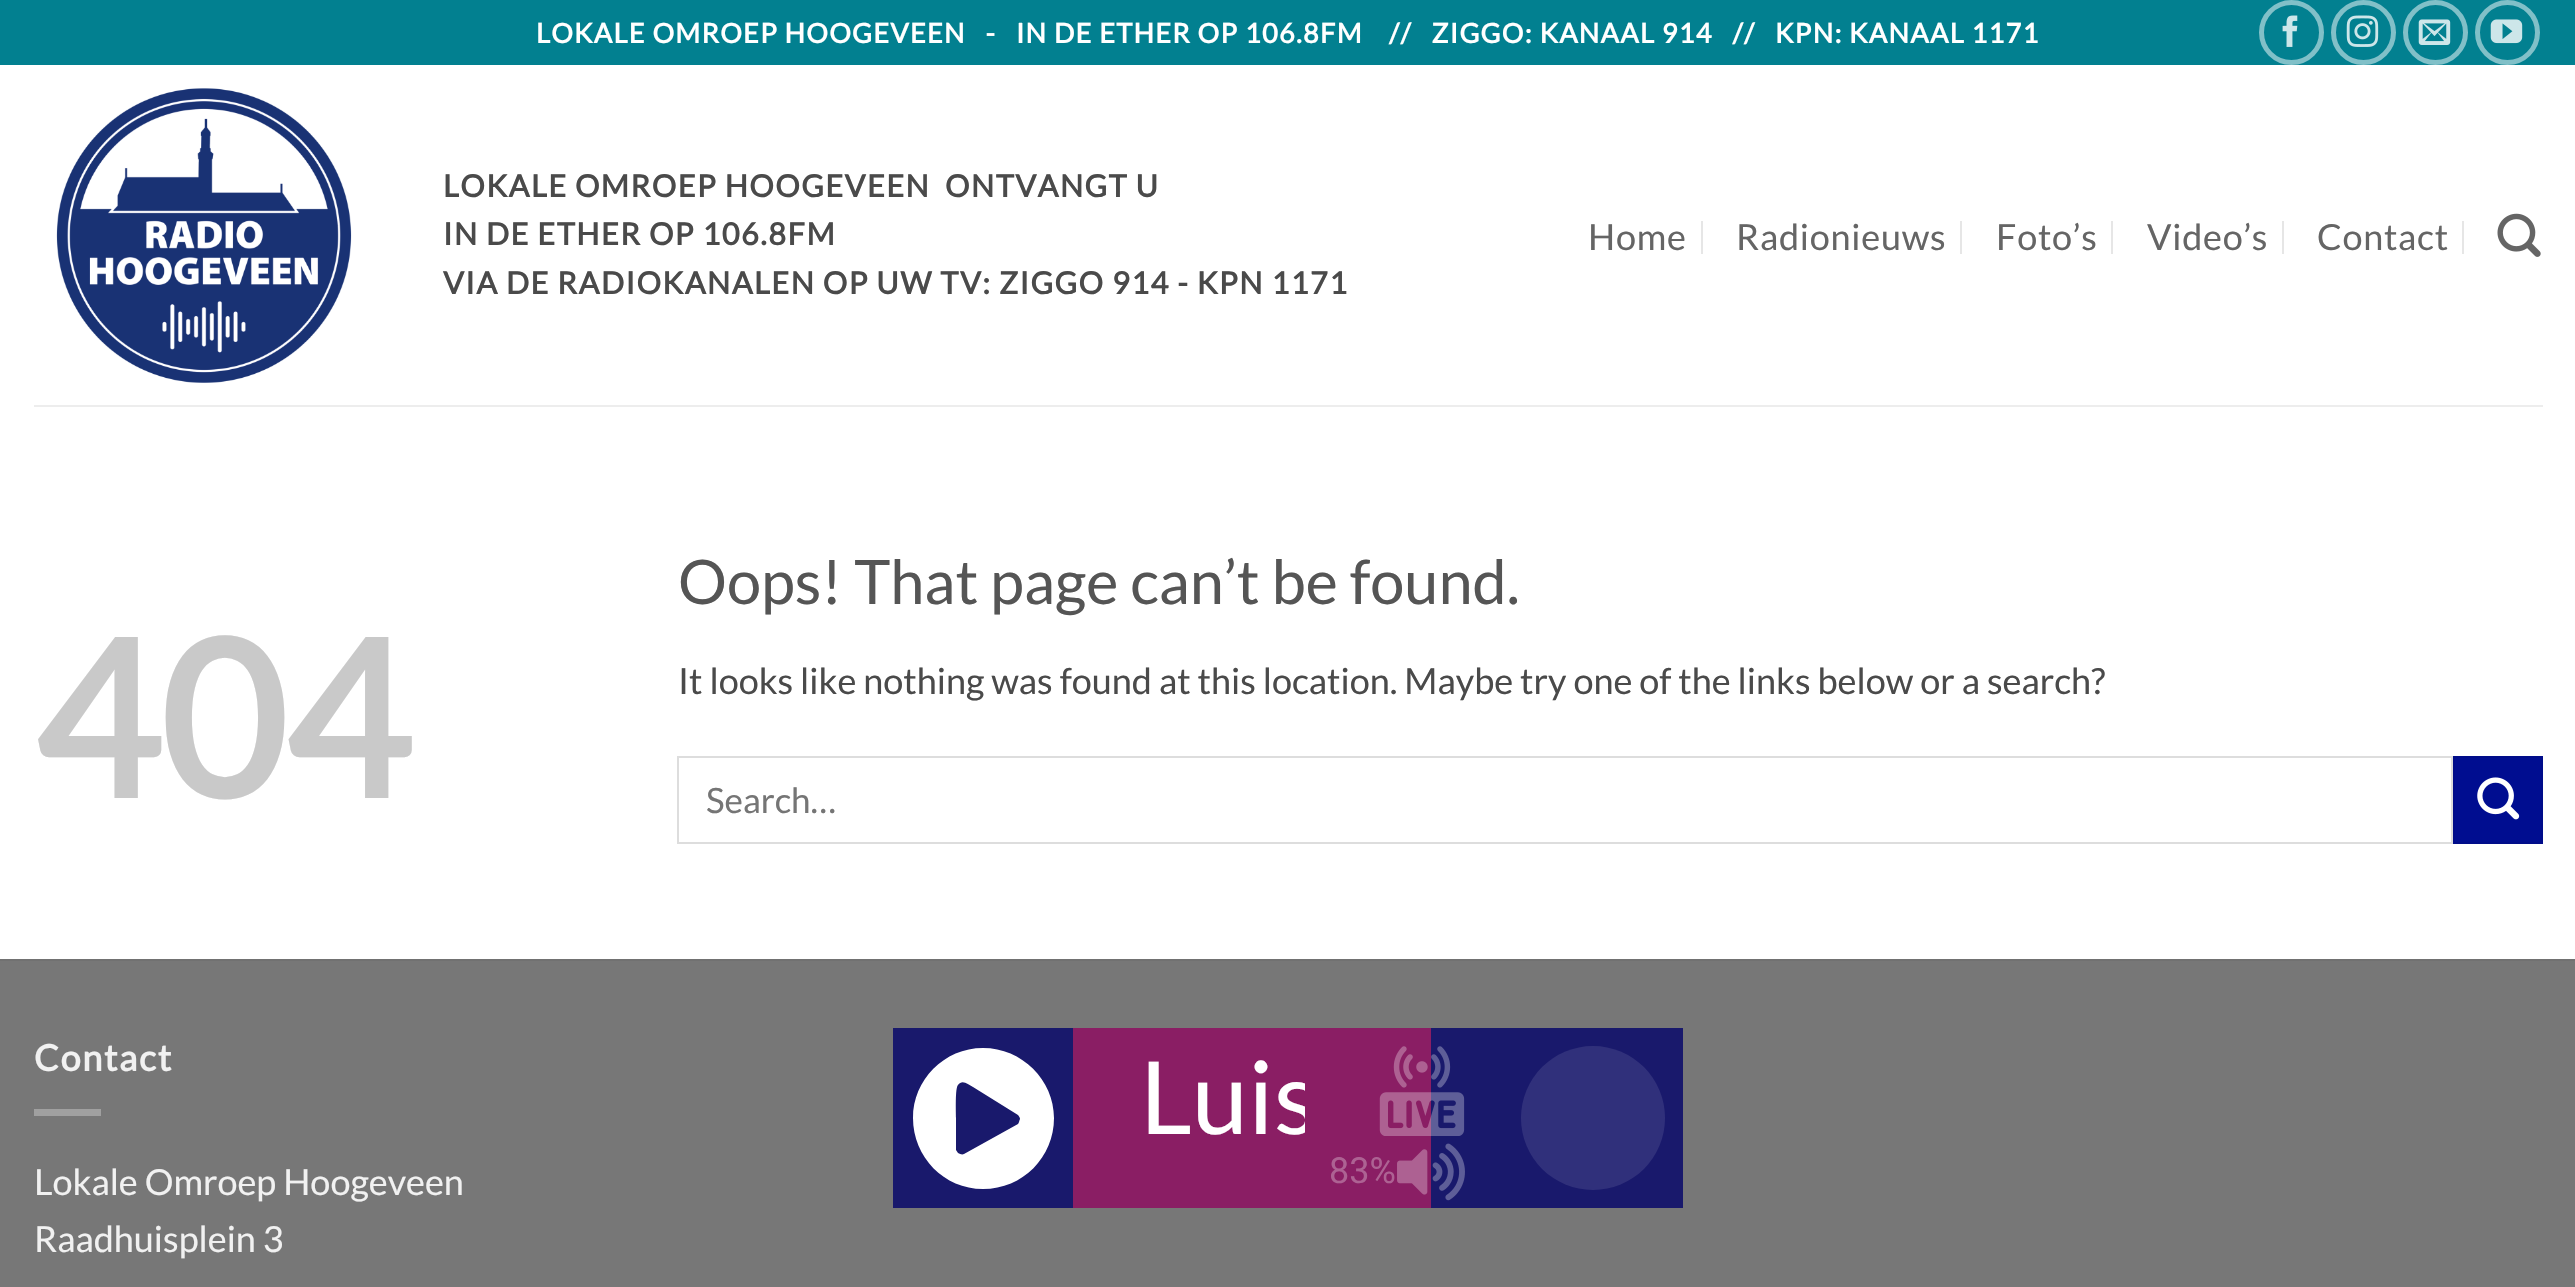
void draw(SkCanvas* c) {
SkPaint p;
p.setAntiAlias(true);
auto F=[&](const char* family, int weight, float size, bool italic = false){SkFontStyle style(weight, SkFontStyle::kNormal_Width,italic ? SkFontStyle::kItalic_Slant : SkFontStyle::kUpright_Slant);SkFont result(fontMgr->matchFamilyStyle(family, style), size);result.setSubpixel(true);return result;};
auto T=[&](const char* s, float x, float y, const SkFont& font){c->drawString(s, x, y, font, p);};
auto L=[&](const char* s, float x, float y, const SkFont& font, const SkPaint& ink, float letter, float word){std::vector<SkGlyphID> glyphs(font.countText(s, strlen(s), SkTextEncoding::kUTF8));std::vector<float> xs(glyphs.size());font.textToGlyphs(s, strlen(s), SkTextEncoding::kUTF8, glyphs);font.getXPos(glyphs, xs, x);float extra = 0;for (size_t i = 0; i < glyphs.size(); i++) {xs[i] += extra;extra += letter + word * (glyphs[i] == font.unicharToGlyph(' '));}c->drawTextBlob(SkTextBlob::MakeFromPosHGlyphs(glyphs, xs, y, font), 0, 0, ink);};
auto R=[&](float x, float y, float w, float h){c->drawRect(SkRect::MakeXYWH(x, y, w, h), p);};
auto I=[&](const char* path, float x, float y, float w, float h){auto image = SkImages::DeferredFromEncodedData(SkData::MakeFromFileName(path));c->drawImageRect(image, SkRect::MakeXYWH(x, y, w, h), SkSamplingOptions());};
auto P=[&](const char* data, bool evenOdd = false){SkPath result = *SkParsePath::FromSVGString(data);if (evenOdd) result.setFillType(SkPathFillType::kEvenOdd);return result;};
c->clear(0xffffffff);
p.setColor(0xff028090);
R(0,0,2575,65);
auto f1 = F("Lato",700,27);
p.setColor(0xffffffff);
L("LOKALE OMROEP HOOGEVEEN   -   IN DE ETHER OP 106.8FM    //   ZIGGO: KANAAL 914   //   KPN: KANAAL 1171",536,43,f1,p,1.35,0);
p.setStroke(true);
p.setStrokeWidth(5);
p.setColor(0xff81c0c8);
c->drawCircle(2291.5,32.5,30,p);
I("1.png",2282,15,16,32);
c->drawCircle(2363.5,32.5,30,p);
I("2.png",2346,15,33,32);
c->drawCircle(2435.5,32.5,30,p);
I("3.png",2418,19,33,26);
c->drawCircle(2507.5,32.5,30,p);
I("4.png",2490,19,33,25);
I("5.png",56,88,296,295);
auto f2 = F("Lato",700,30.6);
p.setStroke(false);
p.setColor(0xff4a4a4a);
L("LOKALE OMROEP HOOGEVEEN  ONTVANGT U",443,197,f2,p,1.53,0);
L("IN DE ETHER OP 106.8FM",443,245,f2,p,1.53,0);
L("VIA DE RADIOKANALEN OP UW TV: ZIGGO 914 - KPN 1171",443,294,f2,p,1.53,0);
auto f3 = F("Lato",400,36);
p.setColor(0xff656565);
L("Home",1588,250,f3,p,.75,0);
p.setColor(0xffe6e6e6);
R(1701,221,2,33);
p.setColor(0xff656565);
L("Radionieuws",1736,250,f3,p,.75,0);
p.setColor(0xffe6e6e6);
R(1960,221,2,33);
p.setColor(0xff656565);
L("Foto’s",1996,250,f3,p,.75,0);
p.setColor(0xffe6e6e6);
R(2111,221,2,33);
p.setColor(0xff656565);
L("Video’s",2147,250,f3,p,.75,0);
p.setColor(0xffe6e6e6);
R(2282,221,2,33);
p.setColor(0xff656565);
L("Contact",2317,250,f3,p,.75,0);
p.setColor(0xffe6e6e6);
R(2462,221,2,33);
I("6.png",2497,213,44,44);
p.setColor(0xffededed);
R(34,405,2509,2);
auto f4 = F("Lato",700,216);
p.setColor(0xffc9c9c9);
T("404",34,798,f4);
auto f5 = F("Lato",400,61.25);
p.setColor(0xff555555);
T("Oops! That page can’t be found.",678,604,f5);
p.setColor(0xff4a4a4a);
T("It looks like nothing was found at this location. Maybe try one of the links below or a search?",678,694,f3);
p.setStroke(true);
p.setStrokeWidth(2);
p.setColor(0xffdddddd);
c->drawRect(SkRect::MakeXYWH(678,757,1774,86),p);
auto f6 = F("Lato",400,35);
p.setStroke(false);
p.setColor(0xff757575);
T("Search…",706,813,f6);
p.setColor(0xff000d90);
c->drawRect(SkRect::MakeXYWH(2454,757,88,86),p);
p.setStroke(true);
p.setColor(0xff000c89);
c->drawRect(SkRect::MakeXYWH(2454,757,88,86),p);
I("7.png",2477,777,43,43);
p.setStroke(false);
p.setColor(0xff777777);
R(0,961,2575,326);
p.setColor(0xff717171);
R(0,959,2575,2);
auto f7 = F("Lato",700,36);
p.setColor(0xfff1f1f1);
L("Contact",34,1071,f7,p,1.75,0);
p.setColor(0xffa0a0a0);
R(34,1109,67,7);
p.setColor(0xfff1f1f1);
T("Lokale Omroep Hoogeveen",34,1195,f3);
T("Raadhuisplein 3",34,1252,f3);
p.setColor(0xff19196c);
R(893,1028,790,180);
p.setColor(0xff8a1e64);
R(1073,1028,358,180);
p.setColor(0xffffffff);
c->drawPath(P("M1054 1118c0 39-31 71-71 71c-39 0-70-32-70-71c0-38 31-70 70-70c39 0 71 32 71 70zm-98 0v32l2 3c2 1 4 2 6 1l54-30c1-1 1-3 2-5c0-1-1-3-2-4l-45-28c-5-3-11-8-15-2c-3 3-2 27-2 33z"),p);
c->save();
c->clipRect(SkRect::MakeXYWH(1091,1028,214,138));
auto f8 = F("Lato",400,101);
T("Luis",1140,1134,f8);
c->restore();
I("8.png",1379,1046,86,90);
p.setColor(0xff30307b);
c->drawCircle(1593,1118,72,p);
auto f9 = F("Roboto",400,36);
p.setColor(0xffad6293);
T("83%",1329,1183,f9);
I("9.png",1397,1143,68,58);
}
